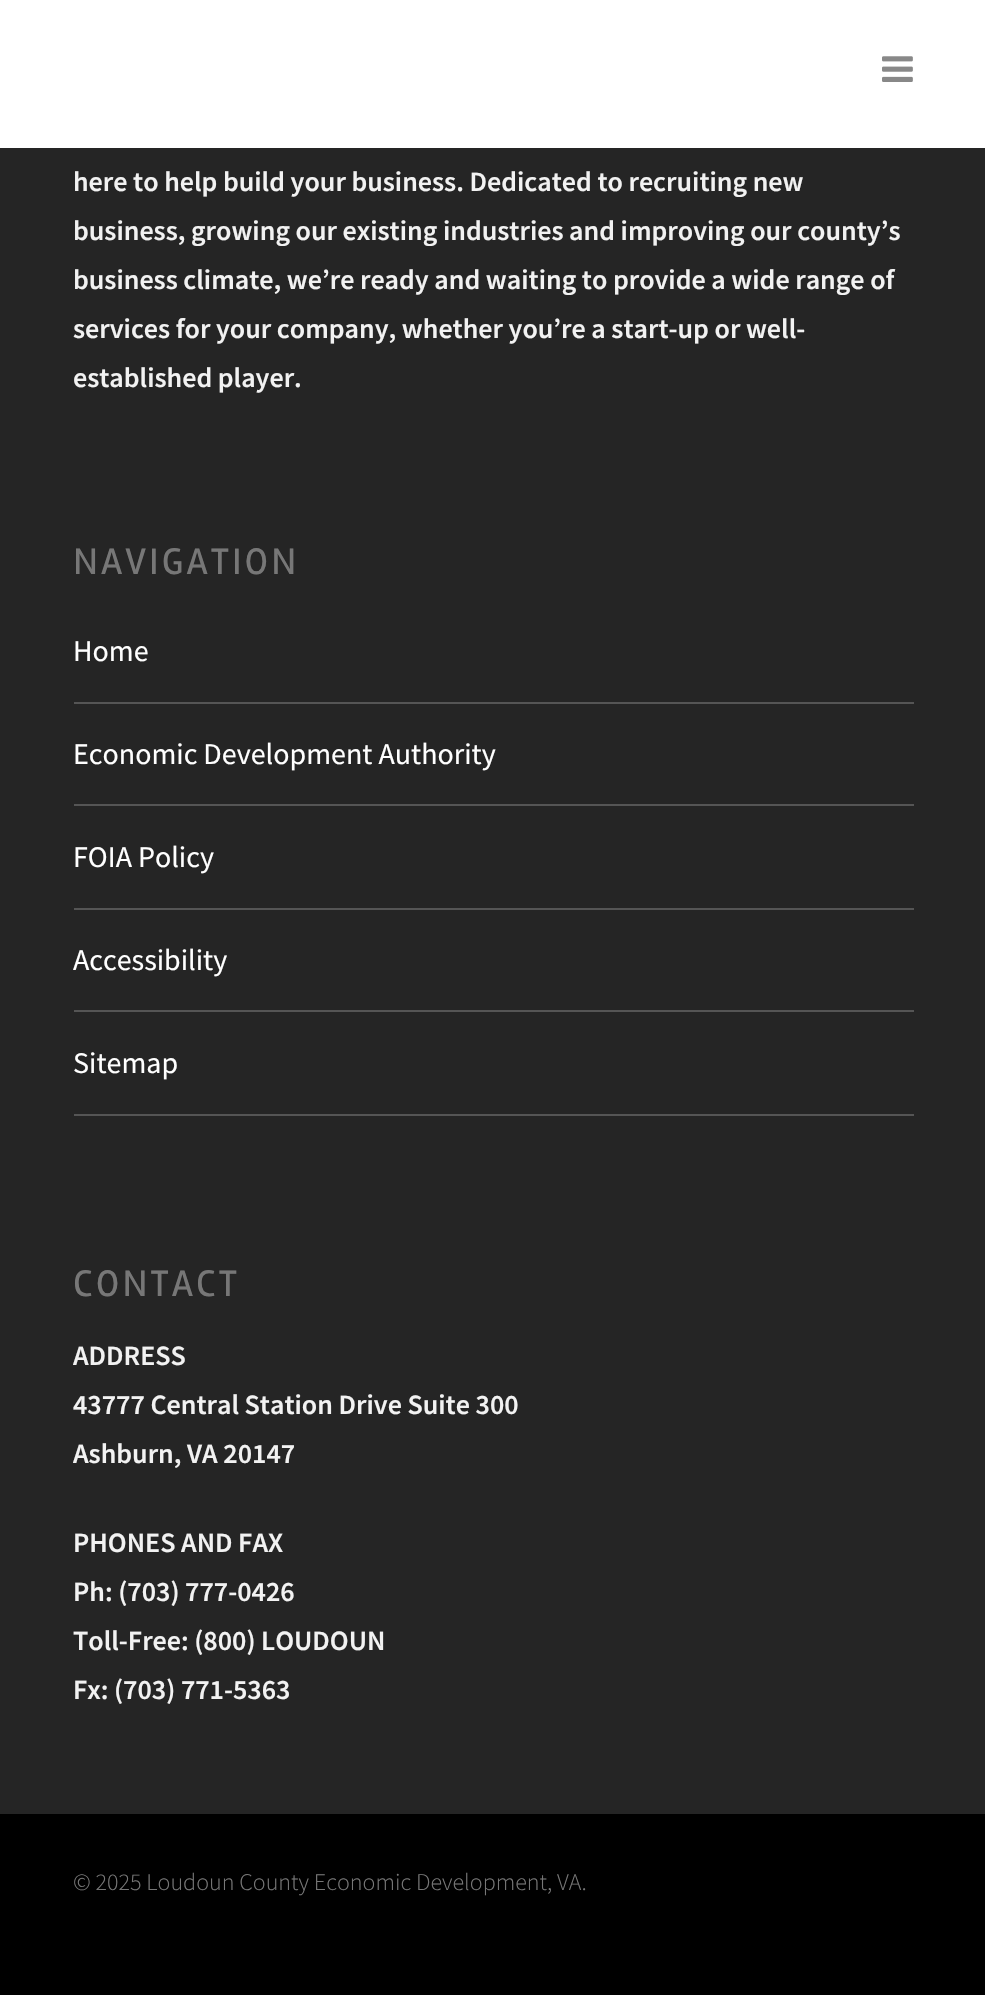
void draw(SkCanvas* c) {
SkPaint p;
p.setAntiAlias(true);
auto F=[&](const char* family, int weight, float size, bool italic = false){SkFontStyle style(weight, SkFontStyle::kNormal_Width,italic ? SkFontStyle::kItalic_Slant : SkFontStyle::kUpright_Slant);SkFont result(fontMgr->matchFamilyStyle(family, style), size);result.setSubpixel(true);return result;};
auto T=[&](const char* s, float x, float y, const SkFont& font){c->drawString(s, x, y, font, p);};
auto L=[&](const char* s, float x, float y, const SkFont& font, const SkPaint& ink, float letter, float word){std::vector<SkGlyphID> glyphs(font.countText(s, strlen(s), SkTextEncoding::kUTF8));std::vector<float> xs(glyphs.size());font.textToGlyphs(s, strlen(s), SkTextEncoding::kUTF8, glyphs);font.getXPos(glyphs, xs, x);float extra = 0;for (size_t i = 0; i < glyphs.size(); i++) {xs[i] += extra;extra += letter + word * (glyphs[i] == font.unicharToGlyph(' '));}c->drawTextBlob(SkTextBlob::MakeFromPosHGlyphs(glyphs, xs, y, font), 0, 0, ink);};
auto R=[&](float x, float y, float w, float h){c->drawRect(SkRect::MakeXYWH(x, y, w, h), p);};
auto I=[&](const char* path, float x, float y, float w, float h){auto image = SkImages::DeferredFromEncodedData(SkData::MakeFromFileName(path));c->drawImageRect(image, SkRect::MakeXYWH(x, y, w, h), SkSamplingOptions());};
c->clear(0xff252525);
p.setColor(0xffffffff);
R(0,0,985,148);
I("1.png",882,56,31,26);
auto f1 = F("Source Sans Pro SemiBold",600,28);
p.setColor(0xfff2f2f2);
T("here to help build your business. Dedicated to recruiting new",73,191,f1);
T("business, growing our existing industries and improving our county’s",73,240,f1);
T("business climate, we’re ready and waiting to provide a wide range of",73,289,f1);
T("services for your company, whether you’re a start-up or well-",73,338,f1);
T("established player.",73,387,f1);
auto f2 = F("Rambla",400,38);
p.setColor(0xff777777);
L("NAVIGATION",73,574,f2,p,3,0);
p.setColor(0xff555555);
R(74,702,840,2);
auto f3 = F("Source Sans Pro",400,30);
p.setColor(0xffffffff);
T("Home",73,661,f3);
p.setColor(0xff555555);
R(74,804,840,2);
p.setColor(0xffffffff);
T("Economic Development Authority",73,764,f3);
p.setColor(0xff555555);
R(74,908,840,2);
p.setColor(0xffffffff);
T("FOIA Policy",73,867,f3);
p.setColor(0xff555555);
R(74,1010,840,2);
p.setColor(0xffffffff);
T("Accessibility",73,970,f3);
p.setColor(0xff555555);
R(74,1114,840,2);
p.setColor(0xffffffff);
T("Sitemap",73,1073,f3);
p.setColor(0xff777777);
L("CONTACT",73,1296,f2,p,3,0);
p.setColor(0xfff2f2f2);
T("ADDRESS",73,1365,f1);
T("43777 Central Station Drive Suite 300",73,1414,f1);
T("Ashburn, VA 20147",73,1463,f1);
T("PHONES AND FAX",73,1552,f1);
T("Ph: (703) 777-0426",73,1601,f1);
T("Toll-Free: (800) LOUDOUN",73,1650,f1);
T("Fx: (703) 771-5363",73,1699,f1);
p.setColor(0xff000000);
R(0,1814,985,181);
auto f4 = F("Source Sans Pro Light",300,24);
p.setColor(0xff777777);
T("© 2025 Loudoun County Economic Development, VA.",73,1890,f4);
}
